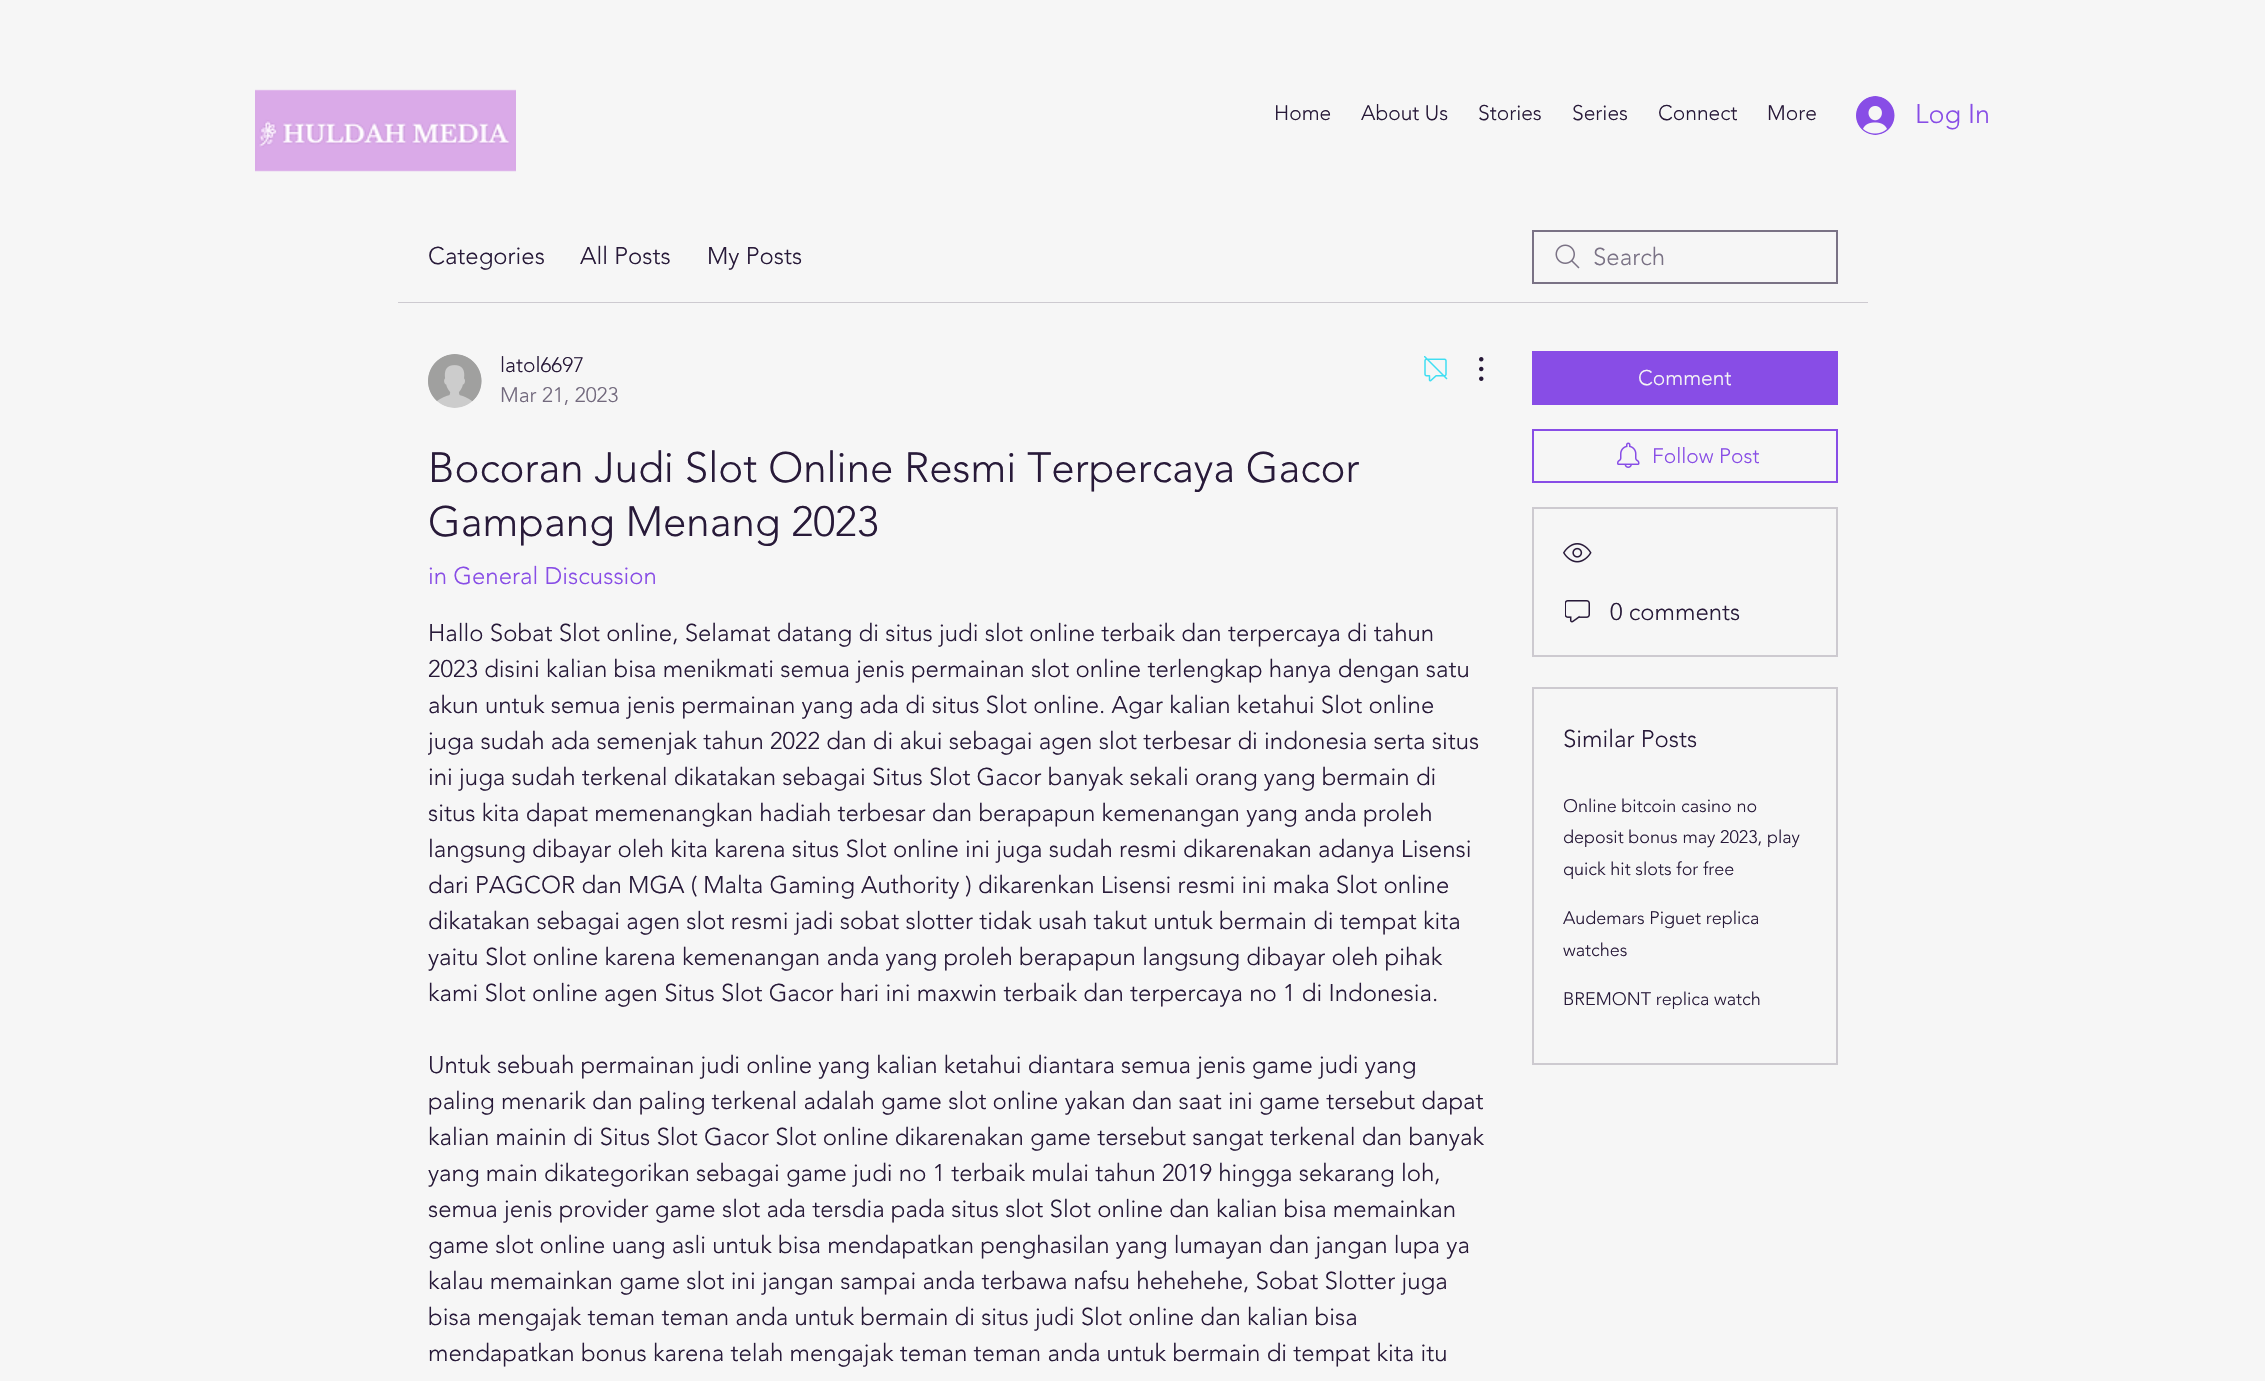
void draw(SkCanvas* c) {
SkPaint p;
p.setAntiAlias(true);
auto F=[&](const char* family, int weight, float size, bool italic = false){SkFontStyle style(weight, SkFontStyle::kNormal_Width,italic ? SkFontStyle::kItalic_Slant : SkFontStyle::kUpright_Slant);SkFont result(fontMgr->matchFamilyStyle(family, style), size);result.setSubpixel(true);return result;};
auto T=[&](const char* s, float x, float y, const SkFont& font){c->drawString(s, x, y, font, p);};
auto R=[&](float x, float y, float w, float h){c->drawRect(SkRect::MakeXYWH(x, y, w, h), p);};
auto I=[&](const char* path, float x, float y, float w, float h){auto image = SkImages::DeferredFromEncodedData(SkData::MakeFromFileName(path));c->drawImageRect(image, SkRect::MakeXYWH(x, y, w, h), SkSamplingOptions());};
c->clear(0xfff6f6f6);
I("1.png",255,89,261,83);
auto f1 = F("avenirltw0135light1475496",300,21);
p.setColor(0xff281a39);
T("Home",1274,120,f1);
T("About Us",1361,120,f1);
T("Stories",1478,120,f1);
T("Series",1572,120,f1);
T("Connect",1658,120,f1);
T("More",1767,120,f1);
I("2.png",1856,96,39,39);
auto f2 = F("avenirltw0135light1475496",300,27);
p.setColor(0xff884de6);
T("Log In",1915,123,f2);
p.setColor(0xffcdcad0);
R(398,302,1470,1);
auto f3 = F("avenirltw0135light1475496",300,24);
p.setColor(0xff281a39);
T("Categories",428,264,f3);
T("All Posts",580,264,f3);
T("My Posts",707,264,f3);
I("3.png",1555,244,25,25);
p.setStroke(true);
p.setStrokeWidth(2);
p.setColor(0xff7a7285);
c->drawRect(SkRect::MakeXYWH(1533,231,304,52),p);
p.setStroke(false);
T("Search",1593,265,f3);
I("4.png",428,354,54,54);
p.setColor(0xff281a39);
T("latol6697",500,372,f1);
p.setColor(0xff72697d);
T("Mar 21, 2023",500,402,f1);
I("5.png",1424,356,24,26);
I("6.png",1479,357,5,24);
auto f4 = F("avenirltw0135light1475496",300,42);
p.setColor(0xff281a39);
T("Bocoran Judi Slot Online Resmi Terpercaya Gacor",428,482,f4);
T("Gampang Menang 2023",428,536,f4);
p.setColor(0xff884de6);
T("in General Discussion",428,584,f3);
p.setColor(0xff281a39);
T("Hallo Sobat Slot online, Selamat datang di situs judi slot online terbaik dan terpercaya di tahun",428,641,f3);
T("2023 disini kalian bisa menikmati semua jenis permainan slot online terlengkap hanya dengan satu",428,677,f3);
T("akun untuk semua jenis permainan yang ada di situs Slot online. Agar kalian ketahui Slot online",428,713,f3);
c->save();
c->clipRect(SkRect::MakeXYWH(428,615,1056,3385));
T("juga sudah ada semenjak tahun 2022 dan di akui sebagai agen slot terbesar di indonesia serta situs",428,749,f3);
c->restore();
T("ini juga sudah terkenal dikatakan sebagai Situs Slot Gacor banyak sekali orang yang bermain di",428,785,f3);
T("situs kita dapat memenangkan hadiah terbesar dan berapapun kemenangan yang anda proleh",428,821,f3);
T("langsung dibayar oleh kita karena situs Slot online ini juga sudah resmi dikarenakan adanya Lisensi",428,857,f3);
T("dari PAGCOR dan MGA ( Malta Gaming Authority ) dikarenkan Lisensi resmi ini maka Slot online",428,893,f3);
T("dikatakan sebagai agen slot resmi jadi sobat slotter tidak usah takut untuk bermain di tempat kita",428,929,f3);
T("yaitu Slot online karena kemenangan anda yang proleh berapapun langsung dibayar oleh pihak",428,965,f3);
T("kami Slot online agen Situs Slot Gacor hari ini maxwin terbaik dan terpercaya no 1 di Indonesia.",428,1001,f3);
T("Untuk sebuah permainan judi online yang kalian ketahui diantara semua jenis game judi yang",428,1073,f3);
T("paling menarik dan paling terkenal adalah game slot online yakan dan saat ini game tersebut dapat",428,1109,f3);
T("kalian mainin di Situs Slot Gacor Slot online dikarenakan game tersebut sangat terkenal dan banyak",428,1145,f3);
T("yang main dikategorikan sebagai game judi no 1 terbaik mulai tahun 2019 hingga sekarang loh,",428,1181,f3);
T("semua jenis provider game slot ada tersdia pada situs slot Slot online dan kalian bisa memainkan",428,1217,f3);
T("game slot online uang asli untuk bisa mendapatkan penghasilan yang lumayan dan jangan lupa ya",428,1253,f3);
T("kalau memainkan game slot ini jangan sampai anda terbawa nafsu hehehehe, Sobat Slotter juga",428,1289,f3);
T("bisa mengajak teman teman anda untuk bermain di situs judi Slot online dan kalian bisa",428,1325,f3);
T("mendapatkan bonus karena telah mengajak teman teman anda untuk bermain di tempat kita itu",428,1361,f3);
p.setColor(0xff884de6);
R(1532,351,306,54);
p.setColor(0xfff6f6f6);
T("Comment",1638,385,f1);
p.setStroke(true);
p.setColor(0xff884de6);
c->drawRect(SkRect::MakeXYWH(1533,430,304,52),p);
I("7.png",1617,442,23,26);
p.setStroke(false);
T("Follow Post",1652,463,f1);
p.setStroke(true);
p.setColor(0xffcdcad0);
c->drawRect(SkRect::MakeXYWH(1533,508,304,148),p);
I("8.png",1563,543,29,20);
I("9.png",1565,600,25,23);
p.setStroke(false);
p.setColor(0xff281a39);
T("0 comments",1610,620,f3);
p.setStroke(true);
p.setColor(0xffcdcad0);
c->drawRect(SkRect::MakeXYWH(1533,688,304,376),p);
p.setStroke(false);
p.setColor(0xff281a39);
T("Similar Posts",1563,747,f3);
auto f5 = F("avenirltw0135light1475496",300,18);
T("Online bitcoin casino no",1563,812,f5);
T("deposit bonus may 2023, play",1563,843,f5);
T("quick hit slots for free",1563,875,f5);
T("Audemars Piguet replica",1563,924,f5);
T("watches",1563,956,f5);
T("BREMONT replica watch",1563,1005,f5);
}
